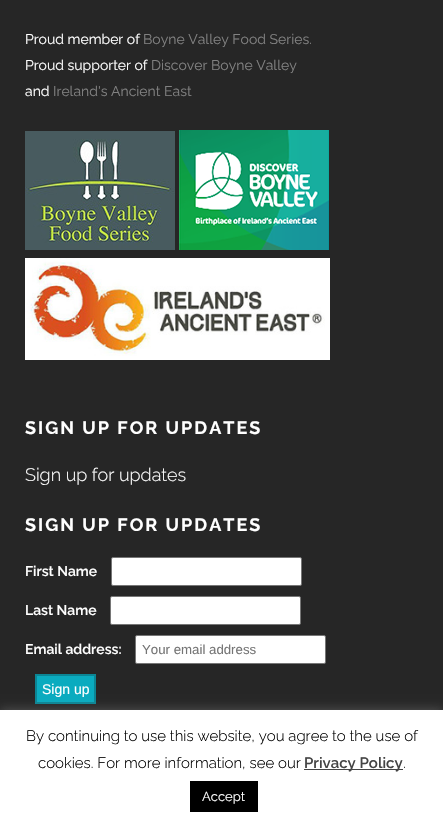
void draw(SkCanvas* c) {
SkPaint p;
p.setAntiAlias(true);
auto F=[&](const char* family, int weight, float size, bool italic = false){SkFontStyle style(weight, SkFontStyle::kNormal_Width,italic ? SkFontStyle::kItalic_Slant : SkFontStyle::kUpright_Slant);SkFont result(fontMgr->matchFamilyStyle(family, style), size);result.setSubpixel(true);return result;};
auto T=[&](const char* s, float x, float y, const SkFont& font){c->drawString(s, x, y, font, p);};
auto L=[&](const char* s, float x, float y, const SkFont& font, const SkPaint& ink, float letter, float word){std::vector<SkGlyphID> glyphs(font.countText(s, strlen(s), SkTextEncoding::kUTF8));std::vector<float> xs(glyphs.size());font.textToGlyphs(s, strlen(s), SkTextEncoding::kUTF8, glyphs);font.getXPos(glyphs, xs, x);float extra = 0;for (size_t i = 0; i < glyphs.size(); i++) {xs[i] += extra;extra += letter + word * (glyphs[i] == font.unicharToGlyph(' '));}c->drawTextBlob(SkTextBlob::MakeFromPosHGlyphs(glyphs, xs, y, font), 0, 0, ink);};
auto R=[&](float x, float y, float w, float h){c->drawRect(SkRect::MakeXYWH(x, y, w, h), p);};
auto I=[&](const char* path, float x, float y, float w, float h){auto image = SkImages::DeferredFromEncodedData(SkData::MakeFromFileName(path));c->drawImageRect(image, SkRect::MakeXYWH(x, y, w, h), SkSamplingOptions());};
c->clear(0xff262626);
auto f1 = F("Raleway",400,14);
p.setColor(0xffffffff);
T("Proud member of",25,44,f1);
p.setColor(0xff818181);
T("Boyne Valley Food Series.",143,44,f1);
p.setColor(0xffffffff);
T("Proud supporter of",25,70,f1);
p.setColor(0xff818181);
T("Discover Boyne Valley",151,70,f1);
p.setColor(0xffffffff);
T("and",25,96,f1);
p.setColor(0xff818181);
T("Ireland's Ancient East",53,96,f1);
I("1.png",25,131,150,119);
I("2.png",179,130,150,120);
I("3.png",25,258,305,102);
auto f2 = F("Raleway",700,18);
p.setColor(0xffffffff);
L("SIGN UP FOR UPDATES",25,434,f2,p,2,0);
auto f3 = F("Raleway",300,18);
T("Sign up for updates",25,481,f3);
L("SIGN UP FOR UPDATES",25,531,f2,p,2,0);
auto f4 = F("Raleway",600,14);
T("First Name",25,576,f4);
c->drawRoundRect(SkRect::MakeXYWH(111.5,557.5,190,28),1.5,1.5,p);
p.setStroke(true);
p.setStrokeWidth(1);
p.setColor(0xff767676);
c->drawRoundRect(SkRect::MakeXYWH(111.5,557.5,190,28),1.5,1.5,p);
p.setStroke(false);
p.setColor(0xffffffff);
T("Last Name",25,615,f4);
c->drawRoundRect(SkRect::MakeXYWH(110.5,596.5,190,28),1.5,1.5,p);
p.setStroke(true);
p.setColor(0xff767676);
c->drawRoundRect(SkRect::MakeXYWH(110.5,596.5,190,28),1.5,1.5,p);
p.setStroke(false);
p.setColor(0xffffffff);
T("Email address:",25,654,f4);
c->drawRoundRect(SkRect::MakeXYWH(135.5,635.5,190,28),1.5,1.5,p);
p.setStroke(true);
p.setColor(0xff767676);
c->drawRoundRect(SkRect::MakeXYWH(135.5,635.5,190,28),1.5,1.5,p);
auto f5 = F("Liberation Sans",400,13.25);
p.setStroke(false);
p.setColor(0xff757575);
T("Your email address",142,654,f5);
p.setColor(0xff0aabbf);
c->drawRect(SkRect::MakeXYWH(36,675,59,28),p);
p.setStroke(true);
p.setStrokeWidth(2);
p.setColor(0xff0b8594);
c->drawRect(SkRect::MakeXYWH(36,675,59,28),p);
auto f6 = F("Liberation Sans",400,14);
p.setStroke(false);
p.setColor(0xffffffff);
T("Sign up",42,694,f6);
p.setColor(0x4dacabab);
p.setMaskFilter(SkMaskFilter::MakeBlur(kNormal_SkBlurStyle, 5));
c->drawRect(SkRect::MakeXYWH(0,709,443,114),p);
p.setMaskFilter(nullptr);
p.setColor(0xffffffff);
R(0,710,443,114);
auto f7 = F("Raleway",300,15);
p.setColor(0xff000000);
T("By continuing to use this website, you agree to the use of",26,741,f7);
T("cookies. For more information, see our",38,768,f7);
p.setColor(0xff444444);
R(304,769,99,1);
auto f8 = F("Raleway",600,15);
T("Privacy Policy",304,768,f8);
p.setColor(0xff000000);
T(".",403,768,f7);
R(190,781,68,31);
auto f9 = F("Raleway",400,13);
p.setColor(0xffffffff);
T("Accept",202,801,f9);
}
